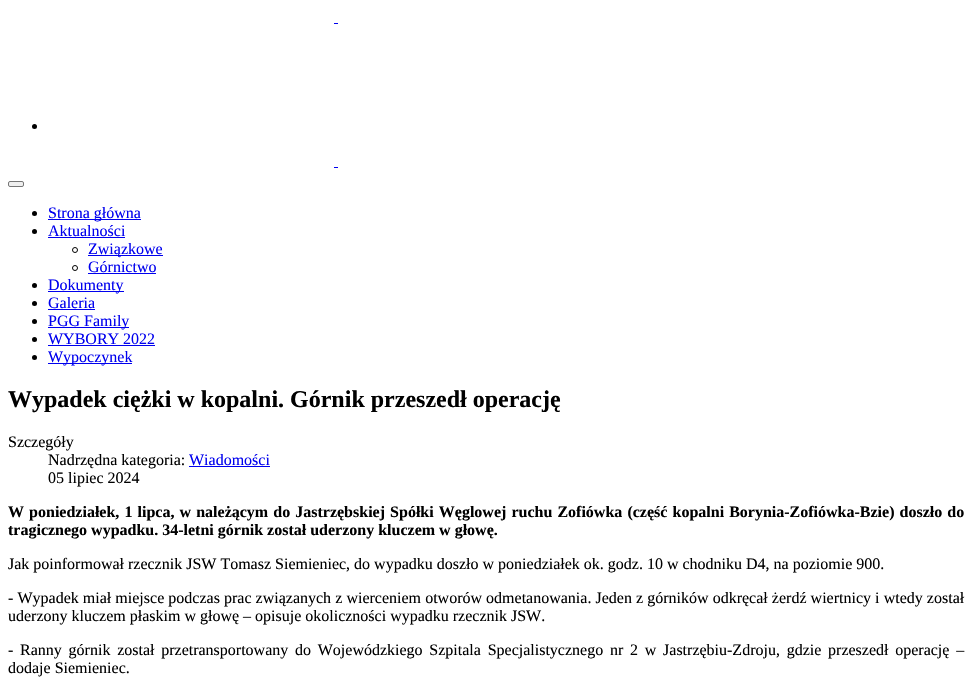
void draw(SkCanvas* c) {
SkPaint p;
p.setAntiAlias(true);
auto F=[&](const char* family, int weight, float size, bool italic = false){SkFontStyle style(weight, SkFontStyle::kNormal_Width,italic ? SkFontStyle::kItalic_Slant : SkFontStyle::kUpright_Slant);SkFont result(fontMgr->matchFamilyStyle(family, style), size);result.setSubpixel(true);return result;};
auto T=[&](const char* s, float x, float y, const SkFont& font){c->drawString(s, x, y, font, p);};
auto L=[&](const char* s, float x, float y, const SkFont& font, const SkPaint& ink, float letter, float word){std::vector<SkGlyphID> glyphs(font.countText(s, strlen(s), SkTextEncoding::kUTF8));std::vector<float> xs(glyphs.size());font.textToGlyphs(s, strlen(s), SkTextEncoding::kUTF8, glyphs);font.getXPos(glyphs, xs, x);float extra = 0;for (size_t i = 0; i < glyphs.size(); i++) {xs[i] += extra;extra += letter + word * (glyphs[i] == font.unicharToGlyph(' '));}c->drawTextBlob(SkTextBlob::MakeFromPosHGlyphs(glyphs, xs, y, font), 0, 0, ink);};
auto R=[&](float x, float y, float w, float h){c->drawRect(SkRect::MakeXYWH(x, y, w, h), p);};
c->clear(0xffffffff);
p.setColor(0xff0000ee);
R(334,23,4,1);
p.setColor(0xff000000);
c->drawCircle(34.5,126.5,2.5,p);
p.setColor(0xff0000ee);
R(334,167,4,1);
p.setColor(0xffefefef);
c->drawRoundRect(SkRect::MakeXYWH(8.5,181.5,15,5),1.5,1.5,p);
p.setStroke(true);
p.setStrokeWidth(1);
p.setColor(0xff767676);
c->drawRoundRect(SkRect::MakeXYWH(8.5,181.5,15,5),1.5,1.5,p);
p.setStroke(false);
p.setColor(0xff000000);
c->drawCircle(34.5,213.5,2.5,p);
p.setColor(0xff0000ee);
R(48,219,93,1);
auto f1 = F("Liberation Serif",400,16);
T("Strona główna",48,218,f1);
p.setColor(0xff000000);
c->drawCircle(34.5,231.5,2.5,p);
p.setColor(0xff0000ee);
T("Aktualności",48,236,f1);
R(48,237,77,1);
p.setStroke(true);
p.setColor(0xff000000);
c->drawCircle(75,250,2.5,p);
p.setStroke(false);
p.setColor(0xff0000ee);
R(88,255,75,1);
T("Związkowe",88,254,f1);
p.setStroke(true);
p.setColor(0xff000000);
c->drawCircle(75,268,2.5,p);
p.setStroke(false);
p.setColor(0xff0000ee);
T("Górnictwo",88,272,f1);
R(88,273,68,1);
p.setColor(0xff000000);
c->drawCircle(34.5,285.5,2.5,p);
p.setColor(0xff0000ee);
R(48,291,76,1);
T("Dokumenty",48,290,f1);
p.setColor(0xff000000);
c->drawCircle(34.5,303.5,2.5,p);
p.setColor(0xff0000ee);
T("Galeria",48,308,f1);
R(48,309,47,1);
p.setColor(0xff000000);
c->drawCircle(34.5,321.5,2.5,p);
p.setColor(0xff0000ee);
R(48,327,81,1);
T("PGG Family",48,326,f1);
p.setColor(0xff000000);
c->drawCircle(34.5,339.5,2.5,p);
p.setColor(0xff0000ee);
T("WYBORY 2022",48,344,f1);
R(48,345,107,1);
p.setColor(0xff000000);
c->drawCircle(34.5,357.5,2.5,p);
p.setColor(0xff0000ee);
R(48,363,84,1);
T("Wypoczynek",48,362,f1);
auto f2 = F("Liberation Serif",700,24);
p.setColor(0xff000000);
T("Wypadek ciężki w kopalni. Górnik przeszedł operację",8,407,f2);
T("Szczegóły",8,447,f1);
T("Nadrzędna kategoria:",48,465,f1);
p.setColor(0xff0000ee);
T("Wiadomości",189,465,f1);
R(189,466,81,1);
p.setColor(0xff000000);
T("05 lipiec 2024",48,483,f1);
auto f3 = F("Liberation Serif",700,16);
L("W poniedziałek, 1 lipca, w należącym do Jastrzębskiej Spółki Węglowej ruchu Zofiówka (część kopalni Borynia-Zofiówka-Bzie) doszło do",8,517,f3,p,0,1.1);
T("tragicznego wypadku. 34-letni górnik został uderzony kluczem w głowę.",8,535,f3);
T("Jak poinformował rzecznik JSW Tomasz Siemieniec, do wypadku doszło w poniedziałek ok. godz. 10 w chodniku D4, na poziomie 900.",8,569,f1);
L("- Wypadek miał miejsce podczas prac związanych z wierceniem otworów odmetanowania. Jeden z górników odkręcał żerdź wiertnicy i wtedy został",8,603,f1,p,0,.1);
T("uderzony kluczem płaskim w głowę – opisuje okoliczności wypadku rzecznik JSW.",8,621,f1);
L("- Ranny górnik został przetransportowany do Wojewódzkiego Szpitala Specjalistycznego nr 2 w Jastrzębiu-Zdroju, gdzie przeszedł operację –",8,655,f1,p,0,2.75);
T("dodaje Siemieniec.",8,673,f1);
}
